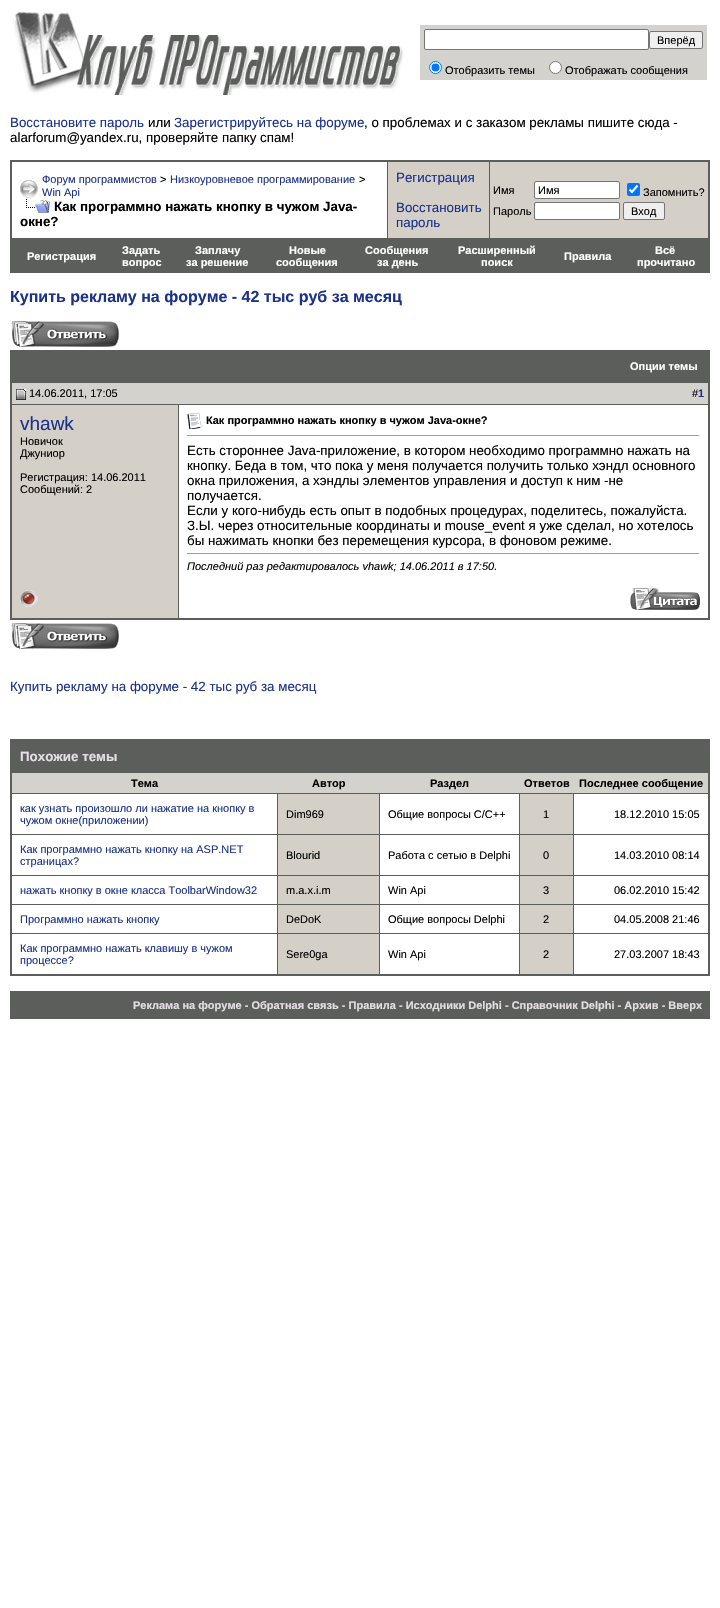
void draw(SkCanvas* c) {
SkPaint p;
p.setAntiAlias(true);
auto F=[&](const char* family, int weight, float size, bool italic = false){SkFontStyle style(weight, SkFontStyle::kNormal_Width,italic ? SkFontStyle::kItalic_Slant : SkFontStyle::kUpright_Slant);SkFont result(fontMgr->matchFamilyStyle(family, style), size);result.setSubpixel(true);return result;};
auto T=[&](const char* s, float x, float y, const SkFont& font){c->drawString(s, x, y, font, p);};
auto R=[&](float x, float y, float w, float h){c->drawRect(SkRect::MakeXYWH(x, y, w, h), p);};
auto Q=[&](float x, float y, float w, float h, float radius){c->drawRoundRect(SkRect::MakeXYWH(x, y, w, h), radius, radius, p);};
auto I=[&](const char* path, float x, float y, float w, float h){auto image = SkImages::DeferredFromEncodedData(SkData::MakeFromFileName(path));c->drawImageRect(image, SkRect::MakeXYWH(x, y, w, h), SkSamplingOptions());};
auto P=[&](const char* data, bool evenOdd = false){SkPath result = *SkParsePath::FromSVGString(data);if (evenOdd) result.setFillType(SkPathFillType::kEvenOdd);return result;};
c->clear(0xffffffff);
I("1.png",13,11,391,84);
p.setColor(0xffd4d2cc);
R(420,25,287,55);
p.setColor(0xffffffff);
c->drawRoundRect(SkRect::MakeXYWH(424.5,29.5,224,20),1.5,1.5,p);
p.setStroke(true);
p.setStrokeWidth(1);
p.setColor(0xff767676);
c->drawRoundRect(SkRect::MakeXYWH(424.5,29.5,224,20),1.5,1.5,p);
p.setStroke(false);
p.setColor(0xffefefef);
c->drawRoundRect(SkRect::MakeXYWH(649.5,31.5,53,17),1.5,1.5,p);
p.setStroke(true);
p.setColor(0xff767676);
c->drawRoundRect(SkRect::MakeXYWH(649.5,31.5,53,17),1.5,1.5,p);
auto f1 = F("Liberation Sans",400,11);
p.setStroke(false);
p.setColor(0xff000000);
T("Вперёд",657,44,f1);
p.setColor(0xffffffff);
c->drawCircle(435.5,67.5,6,p);
p.setStroke(true);
p.setColor(0xff0075ff);
c->drawCircle(435.5,67.5,6,p);
p.setStroke(false);
c->drawCircle(435.5,67.5,4,p);
p.setColor(0xff000000);
T("Отобразить темы",445,74,f1);
p.setColor(0xffffffff);
c->drawCircle(555.5,67.5,6,p);
p.setStroke(true);
p.setColor(0xff767676);
c->drawCircle(555.5,67.5,6,p);
p.setStroke(false);
p.setColor(0xff000000);
T("Отображать сообщения",565,74,f1);
auto f2 = F("Liberation Sans",400,13.35);
p.setColor(0xff1c3289);
T("Восстановите пароль",10,127,f2);
p.setColor(0xff000000);
T("или",148,127,f2);
p.setColor(0xff1c3289);
T("Зарегистрируйтесь на форуме",174,127,f2);
p.setColor(0xff000000);
T(", о проблемах и с заказом рекламы пишите сюда -",364,127,f2);
T("alarforum@yandex.ru, проверяйте папку спам!",10,142,f2);
p.setColor(0xff5c5e5c);
R(10,160,700,80);
p.setColor(0xffffffff);
R(12,162,375,76);
I("2.png",20,180,18,18);
p.setColor(0xff1c3289);
T("Форум программистов",42,183,f1);
p.setColor(0xff000000);
T(">",160,183,f1);
p.setColor(0xff1c3289);
T("Низкоуровневое программирование",170,183,f1);
p.setColor(0xff000000);
T(">",359,183,f1);
p.setColor(0xff1c3289);
T("Win Api",42,196,f1);
I("3.png",26,199,24,14);
auto f3 = F("Liberation Sans",700,13.35);
p.setColor(0xff000000);
T("Как программно нажать кнопку в чужом Java-",54,211,f3);
T("окне?",20,226,f3);
p.setColor(0xffd4d0c8);
R(388,162,101,76);
p.setColor(0xff1c3289);
T("Регистрация",396,182,f2);
T("Восстановить",396,212,f2);
T("пароль",396,227,f2);
p.setColor(0xffd4d0c8);
R(490,162,218,76);
p.setColor(0xff000000);
T("Имя",493,194,f1);
p.setColor(0xffffffff);
c->drawRoundRect(SkRect::MakeXYWH(534.5,181.5,85,17),1.5,1.5,p);
p.setStroke(true);
p.setColor(0xff767676);
c->drawRoundRect(SkRect::MakeXYWH(534.5,181.5,85,17),1.5,1.5,p);
p.setStroke(false);
p.setColor(0xff000000);
T("Имя",538,194,f1);
p.setColor(0xff0075ff);
Q(627,183,13,13,2);
p.setStroke(true);
p.setStrokeWidth(2.1);
p.setColor(0xffffffff);
c->drawPath(P("M629.5 189.5l2.5 2.5l5.5-6.5"),p);
p.setStroke(false);
p.setColor(0xff000000);
T("Запомнить?",643,196,f1);
T("Пароль",493,215,f1);
p.setColor(0xffffffff);
c->drawRoundRect(SkRect::MakeXYWH(534.5,202.5,85,17),1.5,1.5,p);
p.setStroke(true);
p.setStrokeWidth(1);
p.setColor(0xff767676);
c->drawRoundRect(SkRect::MakeXYWH(534.5,202.5,85,17),1.5,1.5,p);
p.setStroke(false);
p.setColor(0xffefefef);
c->drawRoundRect(SkRect::MakeXYWH(623.5,202.5,41,17),1.5,1.5,p);
p.setStroke(true);
p.setColor(0xff767676);
c->drawRoundRect(SkRect::MakeXYWH(623.5,202.5,41,17),1.5,1.5,p);
p.setStroke(false);
p.setColor(0xff000000);
T("Вход",631,215,f1);
p.setColor(0xff5c5e5c);
R(11,240,698,32);
R(709,240,1,33);
R(10,272,700,1);
R(10,240,1,33);
auto f4 = F("Liberation Sans",700,11);
p.setColor(0xffffffff);
T("Регистрация",27,260,f4);
T("Задать",122,254,f4);
T("вопрос",122,266,f4);
T("Заплачу",195,254,f4);
T("за решение",186,266,f4);
T("Новые",289,254,f4);
T("сообщения",276,266,f4);
T("Сообщения",365,254,f4);
T("за день",377,266,f4);
T("Расширенный",458,254,f4);
T("поиск",481,266,f4);
T("Правила",564,260,f4);
T("Всё",655,254,f4);
T("прочитано",637,266,f4);
auto f5 = F("Liberation Sans",700,16);
p.setColor(0xff1c3289);
T("Купить рекламу на форуме - 42 тыс руб за месяц",10,302,f5);
I("4.png",11,321,108,26);
p.setColor(0xff5c5e5c);
R(11,351,698,30);
R(10,350,700,1);
R(709,350,1,31);
R(10,350,1,31);
p.setColor(0xffffffff);
T("Опции темы",630,370,f4);
p.setColor(0xff5c5e5c);
R(10,381,700,239);
p.setColor(0xffd4d2cc);
R(12,383,696,21);
I("5.png",16,389,10,11);
p.setColor(0xff000000);
T("14.06.2011, 17:05",29,397,f1);
T("#",692,397,f1);
p.setColor(0xff1c3289);
T("1",698,397,f4);
p.setColor(0xffd4d0c8);
R(12,405,166,213);
auto f6 = F("Liberation Sans",400,19);
p.setColor(0xff1c3289);
T("vhawk",20,430,f6);
p.setColor(0xff000000);
T("Новичок",20,445,f1);
T("Джуниор",20,457,f1);
T("Регистрация: 14.06.2011",20,481,f1);
T("Сообщений: 2",20,493,f1);
p.setColor(0xffffffff);
R(179,405,529,213);
I("6.png",187,413,15,16);
p.setColor(0xff000000);
T("Как программно нажать кнопку в чужом Java-окне?",206,424,f4);
p.setColor(0xff9f9f9f);
R(187,435,513,1);
p.setColor(0xffeeeeee);
R(699,435,1,1);
p.setColor(0xff000000);
T("Есть стороннее Java-приложение, в котором необходимо программно нажать на",187,455,f2);
T("кнопку. Беда в том, что пока у меня получается получить только хэндл основного",187,470,f2);
T("окна приложения, а хэндлы элементов управления и доступ к ним -не",187,485,f2);
T("получается.",187,500,f2);
T("Если у кого-нибудь есть опыт в подобных процедурах, поделитесь, пожалуйста.",187,515,f2);
T("З.Ы. через относительные координаты и mouse_event я уже сделал, но хотелось",187,530,f2);
T("бы нажимать кнопки без перемещения курсора, в фоновом режиме.",187,545,f2);
p.setColor(0xff9f9f9f);
R(187,553,513,1);
p.setColor(0xffeeeeee);
R(699,553,1,1);
auto f7 = F("Liberation Sans",400,11,true);
p.setColor(0xff000000);
T("Последний раз редактировалось vhawk; 14.06.2011 в 17:50.",187,570,f7);
I("7.png",20,590,18,17);
I("8.png",630,588,70,22);
I("4.png",11,623,108,26);
p.setColor(0xff1c3289);
T("Купить рекламу на форуме - 42 тыс руб за месяц",10,691,f2);
p.setColor(0xff5c5e5c);
R(10,739,700,237);
p.setColor(0xffe4dee4);
T("Похожие темы",20,761,f3);
p.setColor(0xffd4d2cc);
R(12,773,696,20);
p.setColor(0xff000000);
T("Тема",131,787,f4);
T("Автор",312,787,f4);
T("Раздел",430,787,f4);
T("Ответов",524,787,f4);
T("Последнее сообщение",579,787,f4);
p.setColor(0xffffffff);
R(12,794,265,40);
p.setColor(0xff1c3289);
T("как узнать произошло ли нажатие на кнопку в",20,812,f1);
T("чужом окне(приложении)",20,824,f1);
p.setColor(0xffd4d0c8);
R(278,794,101,40);
p.setColor(0xff000000);
T("Dim969",286,818,f1);
p.setColor(0xffffffff);
R(380,794,139,40);
p.setColor(0xff000000);
T("Общие вопросы C/C++",388,818,f1);
p.setColor(0xffd4d0c8);
R(520,794,53,40);
p.setColor(0xff000000);
T("1",543,818,f1);
p.setColor(0xffffffff);
R(574,794,134,40);
p.setColor(0xff000000);
T("18.12.2010 15:05",614,818,f1);
p.setColor(0xffffffff);
R(12,835,265,40);
p.setColor(0xff1c3289);
T("Как программно нажать кнопку на ASP.NET",20,853,f1);
T("страницах?",20,865,f1);
p.setColor(0xffd4d0c8);
R(278,835,101,40);
p.setColor(0xff000000);
T("Blourid",286,859,f1);
p.setColor(0xffffffff);
R(380,835,139,40);
p.setColor(0xff000000);
T("Работа с сетью в Delphi",388,859,f1);
p.setColor(0xffd4d0c8);
R(520,835,53,40);
p.setColor(0xff000000);
T("0",543,859,f1);
p.setColor(0xffffffff);
R(574,835,134,40);
p.setColor(0xff000000);
T("14.03.2010 08:14",614,859,f1);
p.setColor(0xffffffff);
R(12,876,265,28);
p.setColor(0xff1c3289);
T("нажать кнопку в окне класса ToolbarWindow32",20,894,f1);
p.setColor(0xffd4d0c8);
R(278,876,101,28);
p.setColor(0xff000000);
T("m.a.x.i.m",286,894,f1);
p.setColor(0xffffffff);
R(380,876,139,28);
p.setColor(0xff000000);
T("Win Api",388,894,f1);
p.setColor(0xffd4d0c8);
R(520,876,53,28);
p.setColor(0xff000000);
T("3",543,894,f1);
p.setColor(0xffffffff);
R(574,876,134,28);
p.setColor(0xff000000);
T("06.02.2010 15:42",614,894,f1);
p.setColor(0xffffffff);
R(12,905,265,28);
p.setColor(0xff1c3289);
T("Программно нажать кнопку",20,923,f1);
p.setColor(0xffd4d0c8);
R(278,905,101,28);
p.setColor(0xff000000);
T("DeDoK",286,923,f1);
p.setColor(0xffffffff);
R(380,905,139,28);
p.setColor(0xff000000);
T("Общие вопросы Delphi",388,923,f1);
p.setColor(0xffd4d0c8);
R(520,905,53,28);
p.setColor(0xff000000);
T("2",543,923,f1);
p.setColor(0xffffffff);
R(574,905,134,28);
p.setColor(0xff000000);
T("04.05.2008 21:46",614,923,f1);
p.setColor(0xffffffff);
R(12,934,265,40);
p.setColor(0xff1c3289);
T("Как программно нажать клавишу в чужом",20,952,f1);
T("процессе?",20,964,f1);
p.setColor(0xffd4d0c8);
R(278,934,101,40);
p.setColor(0xff000000);
T("Sere0ga",286,958,f1);
p.setColor(0xffffffff);
R(380,934,139,40);
p.setColor(0xff000000);
T("Win Api",388,958,f1);
p.setColor(0xffd4d0c8);
R(520,934,53,40);
p.setColor(0xff000000);
T("2",543,958,f1);
p.setColor(0xffffffff);
R(574,934,134,40);
p.setColor(0xff000000);
T("27.03.2007 18:43",614,958,f1);
p.setColor(0xff5c5e5c);
R(10,991,700,28);
p.setColor(0xffe4dee4);
T("Реклама на форуме - Обратная связь - Правила - Исходники Delphi - Справочник Delphi - Архив - Вверх",133,1009,f4);
}
